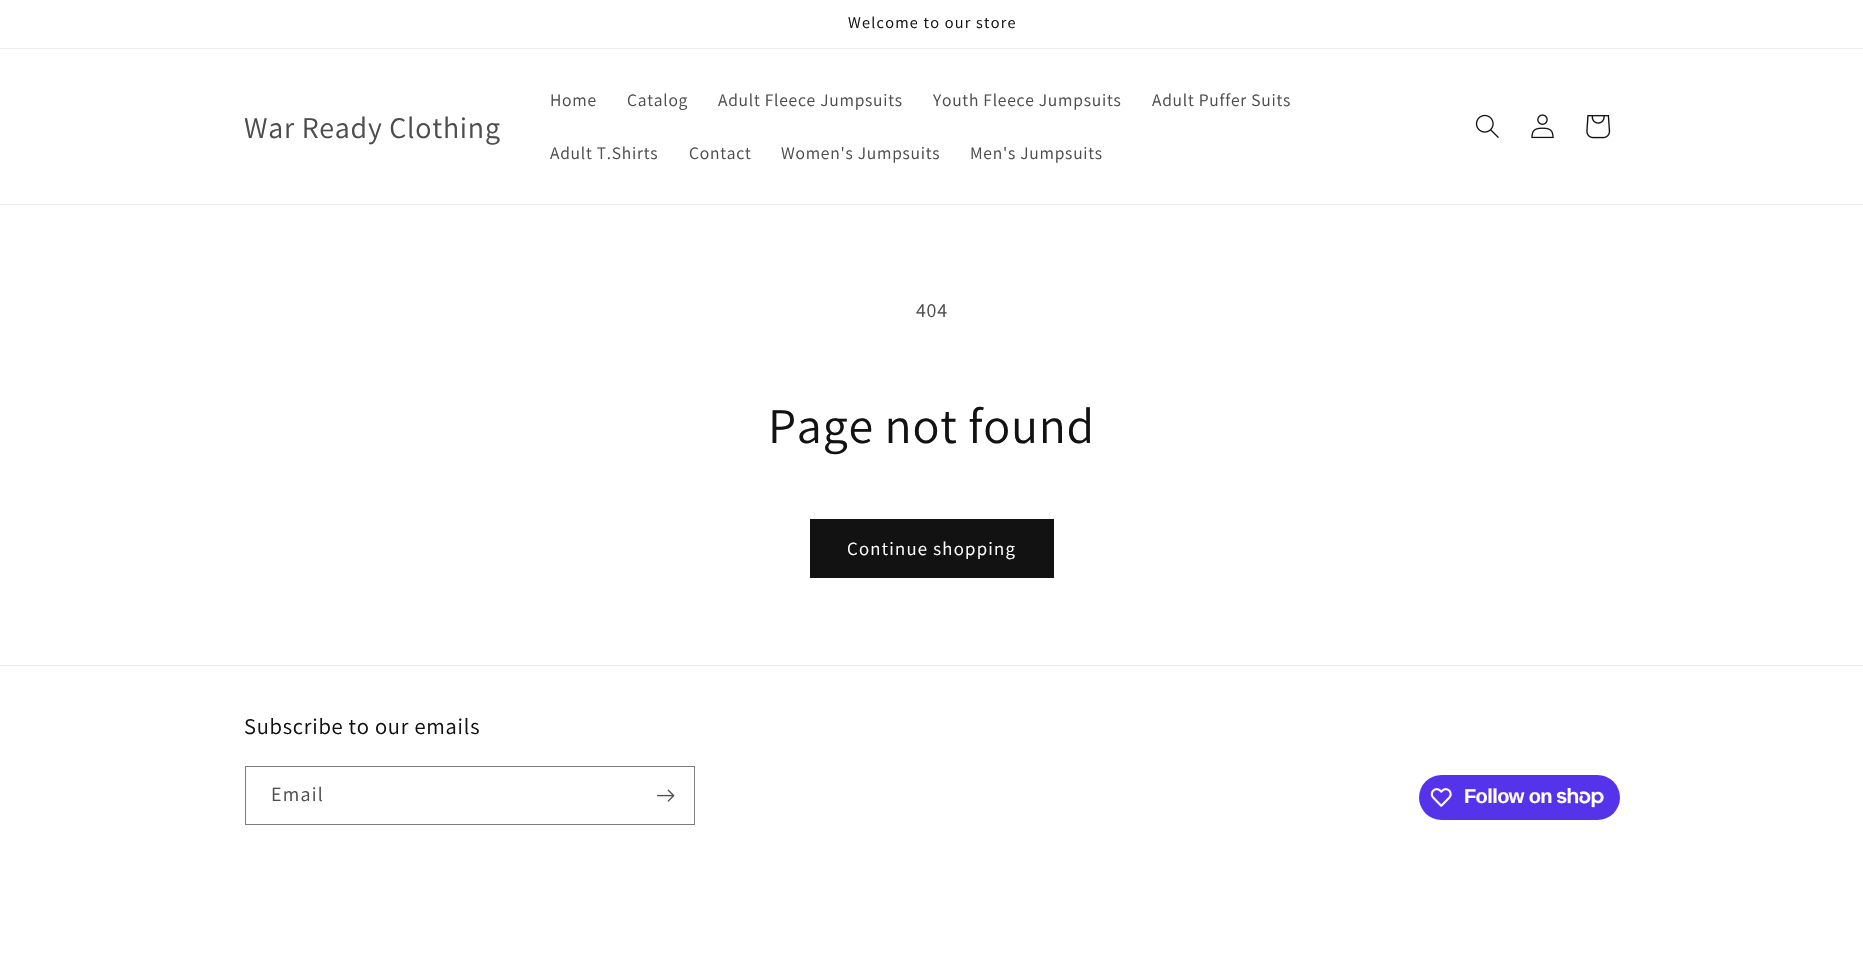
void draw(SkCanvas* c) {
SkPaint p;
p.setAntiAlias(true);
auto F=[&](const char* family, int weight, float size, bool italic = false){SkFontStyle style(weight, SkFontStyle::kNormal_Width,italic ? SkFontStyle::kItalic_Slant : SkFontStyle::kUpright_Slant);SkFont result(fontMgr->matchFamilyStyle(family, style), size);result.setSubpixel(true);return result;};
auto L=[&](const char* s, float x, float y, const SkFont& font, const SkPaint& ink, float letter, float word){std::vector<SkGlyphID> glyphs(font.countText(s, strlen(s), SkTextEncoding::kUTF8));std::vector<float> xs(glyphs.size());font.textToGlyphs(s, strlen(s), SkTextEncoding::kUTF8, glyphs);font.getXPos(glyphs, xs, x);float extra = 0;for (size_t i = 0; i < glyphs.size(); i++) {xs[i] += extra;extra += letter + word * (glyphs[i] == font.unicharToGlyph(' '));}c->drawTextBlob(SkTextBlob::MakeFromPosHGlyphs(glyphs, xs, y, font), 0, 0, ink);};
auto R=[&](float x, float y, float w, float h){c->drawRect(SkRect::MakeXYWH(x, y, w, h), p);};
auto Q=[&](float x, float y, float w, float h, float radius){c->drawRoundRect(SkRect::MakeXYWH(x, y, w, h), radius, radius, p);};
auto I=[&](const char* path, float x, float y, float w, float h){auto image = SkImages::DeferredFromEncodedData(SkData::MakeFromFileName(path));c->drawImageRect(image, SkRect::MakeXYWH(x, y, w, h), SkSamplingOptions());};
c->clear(0xffffffff);
p.setColor(0xffececec);
R(0,48,1863,1);
auto f1 = F("Assistant",400,16.25);
p.setColor(0xff121212);
L("Welcome to our store",848,28,f1,p,1.25,0);
p.setColor(0xffececec);
R(0,204,1863,1);
auto f2 = F("Assistant",400,30);
p.setColor(0xff4d4d4d);
L("War Ready Clothing",244,138,f2,p,.75,0);
auto f3 = F("Assistant",400,17.5);
L("Home",550,106,f3,p,.75,0);
L("Catalog",627,106,f3,p,.75,0);
L("Adult Fleece Jumpsuits",718,106,f3,p,.75,0);
L("Youth Fleece Jumpsuits",933,106,f3,p,.75,0);
L("Adult Puffer Suits",1152,106,f3,p,.75,0);
L("Adult T.Shirts",550,159,f3,p,.75,0);
L("Contact",689,159,f3,p,.75,0);
L("Women's Jumpsuits",781,159,f3,p,.75,0);
L("Men's Jumpsuits",970,159,f3,p,.75,0);
I("1.png",1475,114,24,24);
I("2.png",1531,114,23,25);
I("3.png",1586,115,25,24);
auto f4 = F("Assistant",400,20);
L("404",916,317,f4,p,.75,0);
auto f5 = F("Assistant",400,50);
p.setColor(0xff121212);
L("Page not found",768,443,f5,p,.75,0);
R(810,519,244,59);
auto f6 = F("Assistant",400,18.75);
p.setColor(0xffffffff);
L("Continue shopping",847,555,f6,p,1.25,0);
p.setColor(0xffececec);
R(0,665,1863,1);
auto f7 = F("Assistant",400,22.5);
p.setColor(0xff121212);
L("Subscribe to our emails",244,734,f7,p,.75,0);
p.setStroke(true);
p.setStrokeWidth(1);
p.setColor(0xff7d7d7d);
c->drawRect(SkRect::MakeXYWH(245.5,766.5,449,58),p);
p.setStroke(false);
p.setColor(0xff4d4d4d);
L("Email",271,801,f4,p,1.25,0);
I("4.png",657,789,18,13);
p.setColor(0xff5433eb);
Q(1419,775,201,45,22.5);
I("5.png",1430,788,22,19);
auto f8 = F("Liberation Sans",700,20);
p.setColor(0xffffffff);
L("Follow on",1464,803,f8,p,-.6,0);
I("6.png",1556,788,48,20);
}
